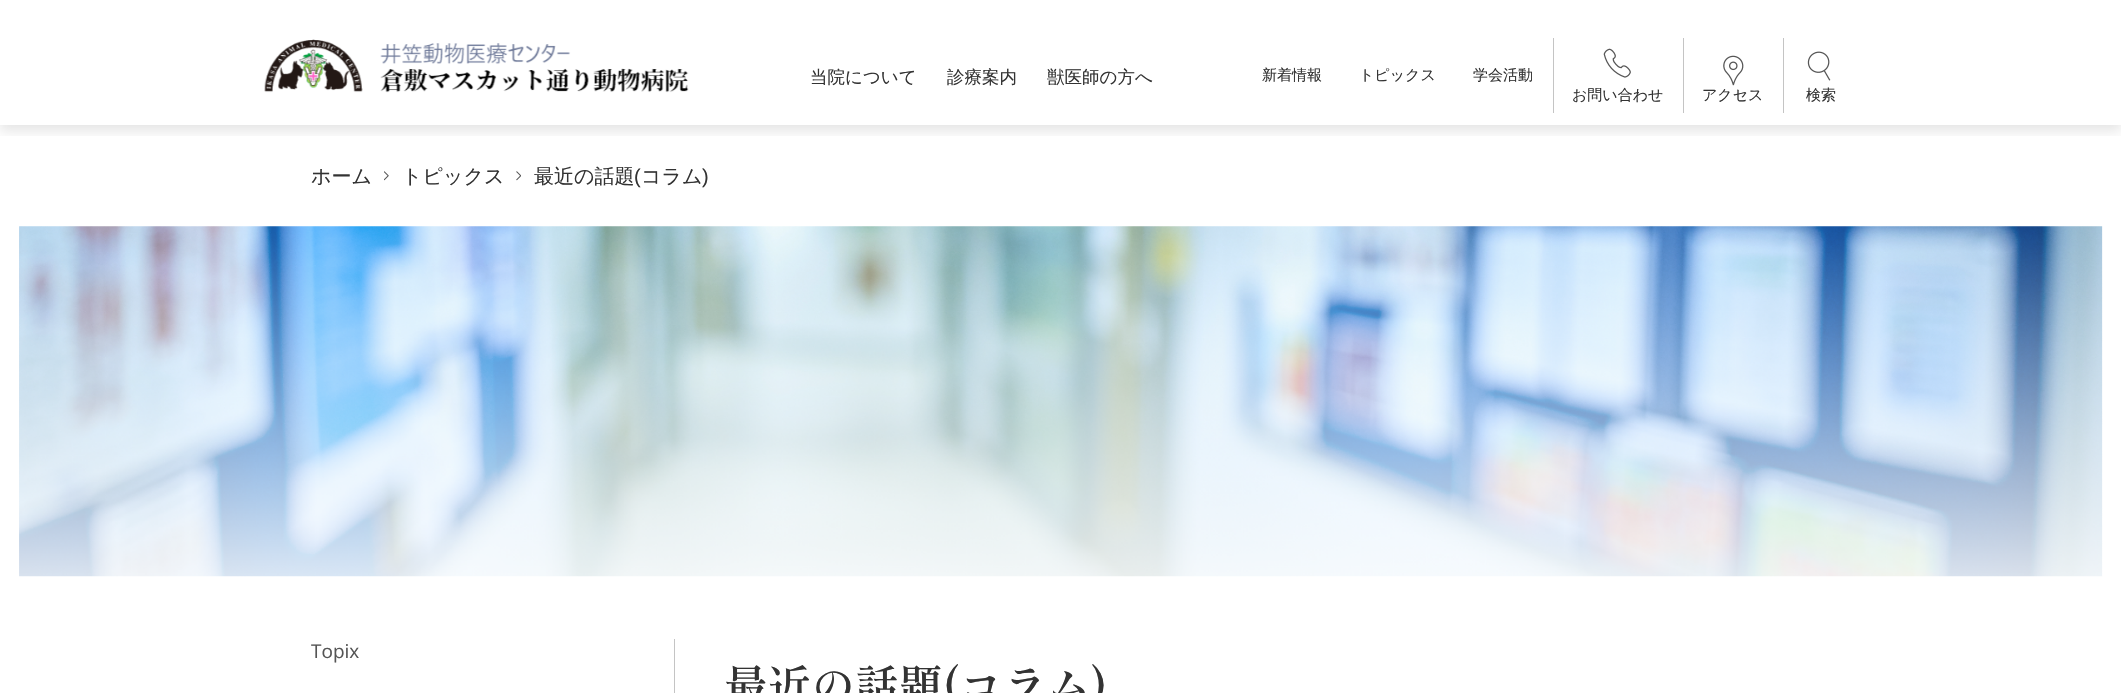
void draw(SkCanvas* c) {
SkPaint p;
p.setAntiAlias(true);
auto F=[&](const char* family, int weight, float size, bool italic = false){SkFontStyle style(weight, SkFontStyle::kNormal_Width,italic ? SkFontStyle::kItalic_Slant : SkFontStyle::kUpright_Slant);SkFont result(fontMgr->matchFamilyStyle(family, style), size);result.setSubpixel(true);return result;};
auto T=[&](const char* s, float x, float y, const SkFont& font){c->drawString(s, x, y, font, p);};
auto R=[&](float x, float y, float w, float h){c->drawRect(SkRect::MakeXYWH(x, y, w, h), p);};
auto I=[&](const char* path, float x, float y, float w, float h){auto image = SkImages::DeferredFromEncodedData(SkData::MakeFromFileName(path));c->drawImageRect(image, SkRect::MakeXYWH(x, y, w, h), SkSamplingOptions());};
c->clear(0xffffffff);
c->save();
c->clipRect(SkRect::MakeXYWH(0,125,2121,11));
p.setColor(0x1a000000);
p.setMaskFilter(SkMaskFilter::MakeBlur(kNormal_SkBlurStyle, 6));
c->drawRect(SkRect::MakeXYWH(0,6,2121,125),p);
p.setMaskFilter(nullptr);
c->restore();
I("1.png",264,39,425,54);
auto f1 = F("WenQuanYi Zen Hei",500,17.5);
p.setColor(0xff333333);
T("当院について",810,83,f1);
T("診療案内",947,83,f1);
T("獣医師の方へ",1047,83,f1);
auto f2 = F("WenQuanYi Zen Hei",500,15);
T("新着情報",1262,80,f2);
T("トピックス",1359,80,f2);
T("学会活動",1473,80,f2);
p.setColor(0xffc4c4c4);
R(1553,38,1,75);
I("2.png",1603,48,28,30);
p.setColor(0xff333333);
T("お問い合わせ",1572,100,f2);
p.setColor(0xffc4c4c4);
R(1683,38,1,75);
I("3.png",1723,55,21,31);
p.setColor(0xff333333);
T("アクセス",1702,100,f2);
p.setColor(0xffc4c4c4);
R(1783,38,1,75);
I("4.png",1807,51,24,30);
p.setColor(0xff333333);
T("検索",1806,100,f2);
auto f3 = F("WenQuanYi Zen Hei",500,20);
T("ホーム",311,183,f3);
I("5.png",384,171,5,10);
T("トピックス",402,183,f3);
I("6.png",516,171,5,10);
T("最近の話題",534,183,f3);
auto f4 = F("Liberation Sans",400,20);
T("(",634,183,f4);
T("コラム",641,183,f3);
T(")",702,183,f4);
I("7.png",19,226,2084,351);
auto f5 = F("Open Sans",400,19);
p.setColor(0xff555555);
T("Topix",311,658,f5);
p.setColor(0xffc4c4c4);
R(674,639,1,54);
auto f6 = F("Shippori Mincho",600,43.75);
p.setColor(0xff333333);
T("最近の話題(コラム)",724,702,f6);
}
